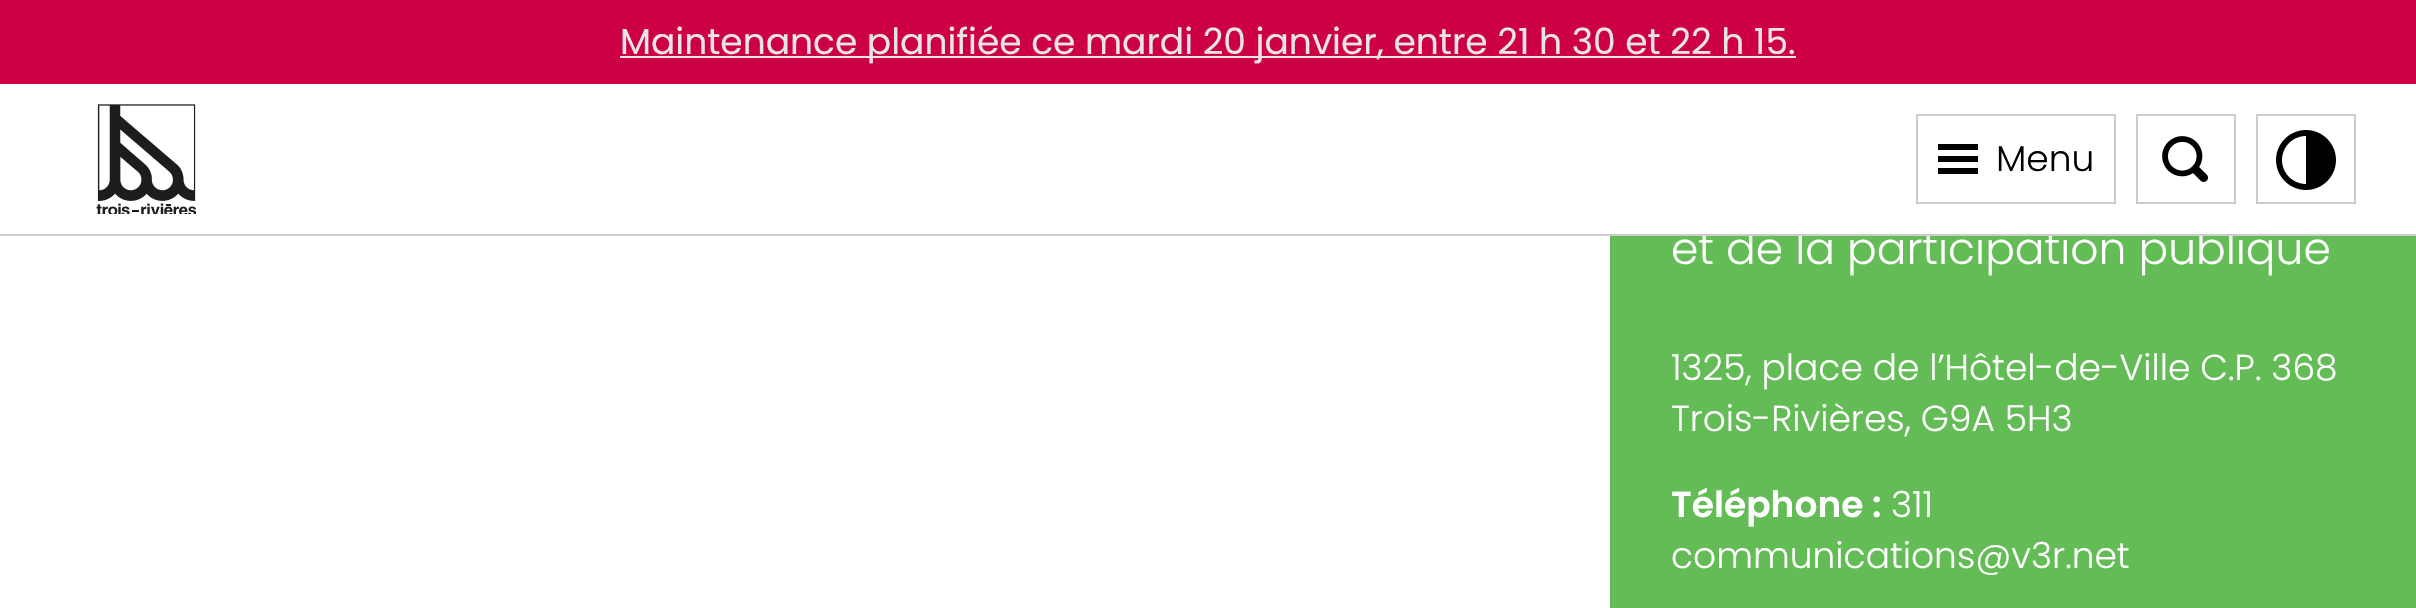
void draw(SkCanvas* c) {
SkPaint p;
p.setAntiAlias(true);
auto F=[&](const char* family, int weight, float size, bool italic = false){SkFontStyle style(weight, SkFontStyle::kNormal_Width,italic ? SkFontStyle::kItalic_Slant : SkFontStyle::kUpright_Slant);SkFont result(fontMgr->matchFamilyStyle(family, style), size);result.setSubpixel(true);return result;};
auto T=[&](const char* s, float x, float y, const SkFont& font){c->drawString(s, x, y, font, p);};
auto R=[&](float x, float y, float w, float h){c->drawRect(SkRect::MakeXYWH(x, y, w, h), p);};
auto I=[&](const char* path, float x, float y, float w, float h){auto image = SkImages::DeferredFromEncodedData(SkData::MakeFromFileName(path));c->drawImageRect(image, SkRect::MakeXYWH(x, y, w, h), SkSamplingOptions());};
c->clear(0xffffffff);
p.setColor(0xffce0045);
R(0,0,2416,84);
p.setColor(0xffe6e6e6);
R(620,56,1176,2);
auto f1 = F("Poppins",400,36);
T("Maintenance planifiée ce mardi 20 janvier, entre 21 h 30 et 22 h 15.",620,54,f1);
p.setColor(0xff63bc55);
R(1610,236,806,372);
auto f2 = F("Poppins",300,44);
p.setColor(0xffffffff);
T("et de la participation publique",1671,264,f2);
p.setColor(0xffcccccc);
R(0,234,2416,2);
I("1.png",96,104,100,110);
p.setColor(0xff000000);
R(1938,144,40,6);
R(1938,156,40,6);
R(1938,168,40,6);
p.setStroke(true);
p.setStrokeWidth(2);
p.setColor(0xffcccccc);
c->drawRect(SkRect::MakeXYWH(1917,115,198,88),p);
auto f3 = F("Poppins",300,36);
p.setStroke(false);
p.setColor(0xff000000);
T("Menu",1996,171,f3);
I("2.png",2162,136,46,46);
p.setStroke(true);
p.setColor(0xffcccccc);
c->drawRect(SkRect::MakeXYWH(2137,115,98,88),p);
I("3.png",2276,130,60,60);
c->drawRect(SkRect::MakeXYWH(2257,115,98,88),p);
p.setStroke(false);
p.setColor(0xffffffff);
T("1325, place de l’Hôtel-de-Ville C.P. 368",1671,380,f3);
T("Trois-Rivières, G9A 5H3",1671,431,f3);
auto f4 = F("Poppins",600,36);
T("Téléphone :",1671,517,f4);
T("311",1891,517,f3);
T("communications@v3r.net",1671,568,f3);
}
